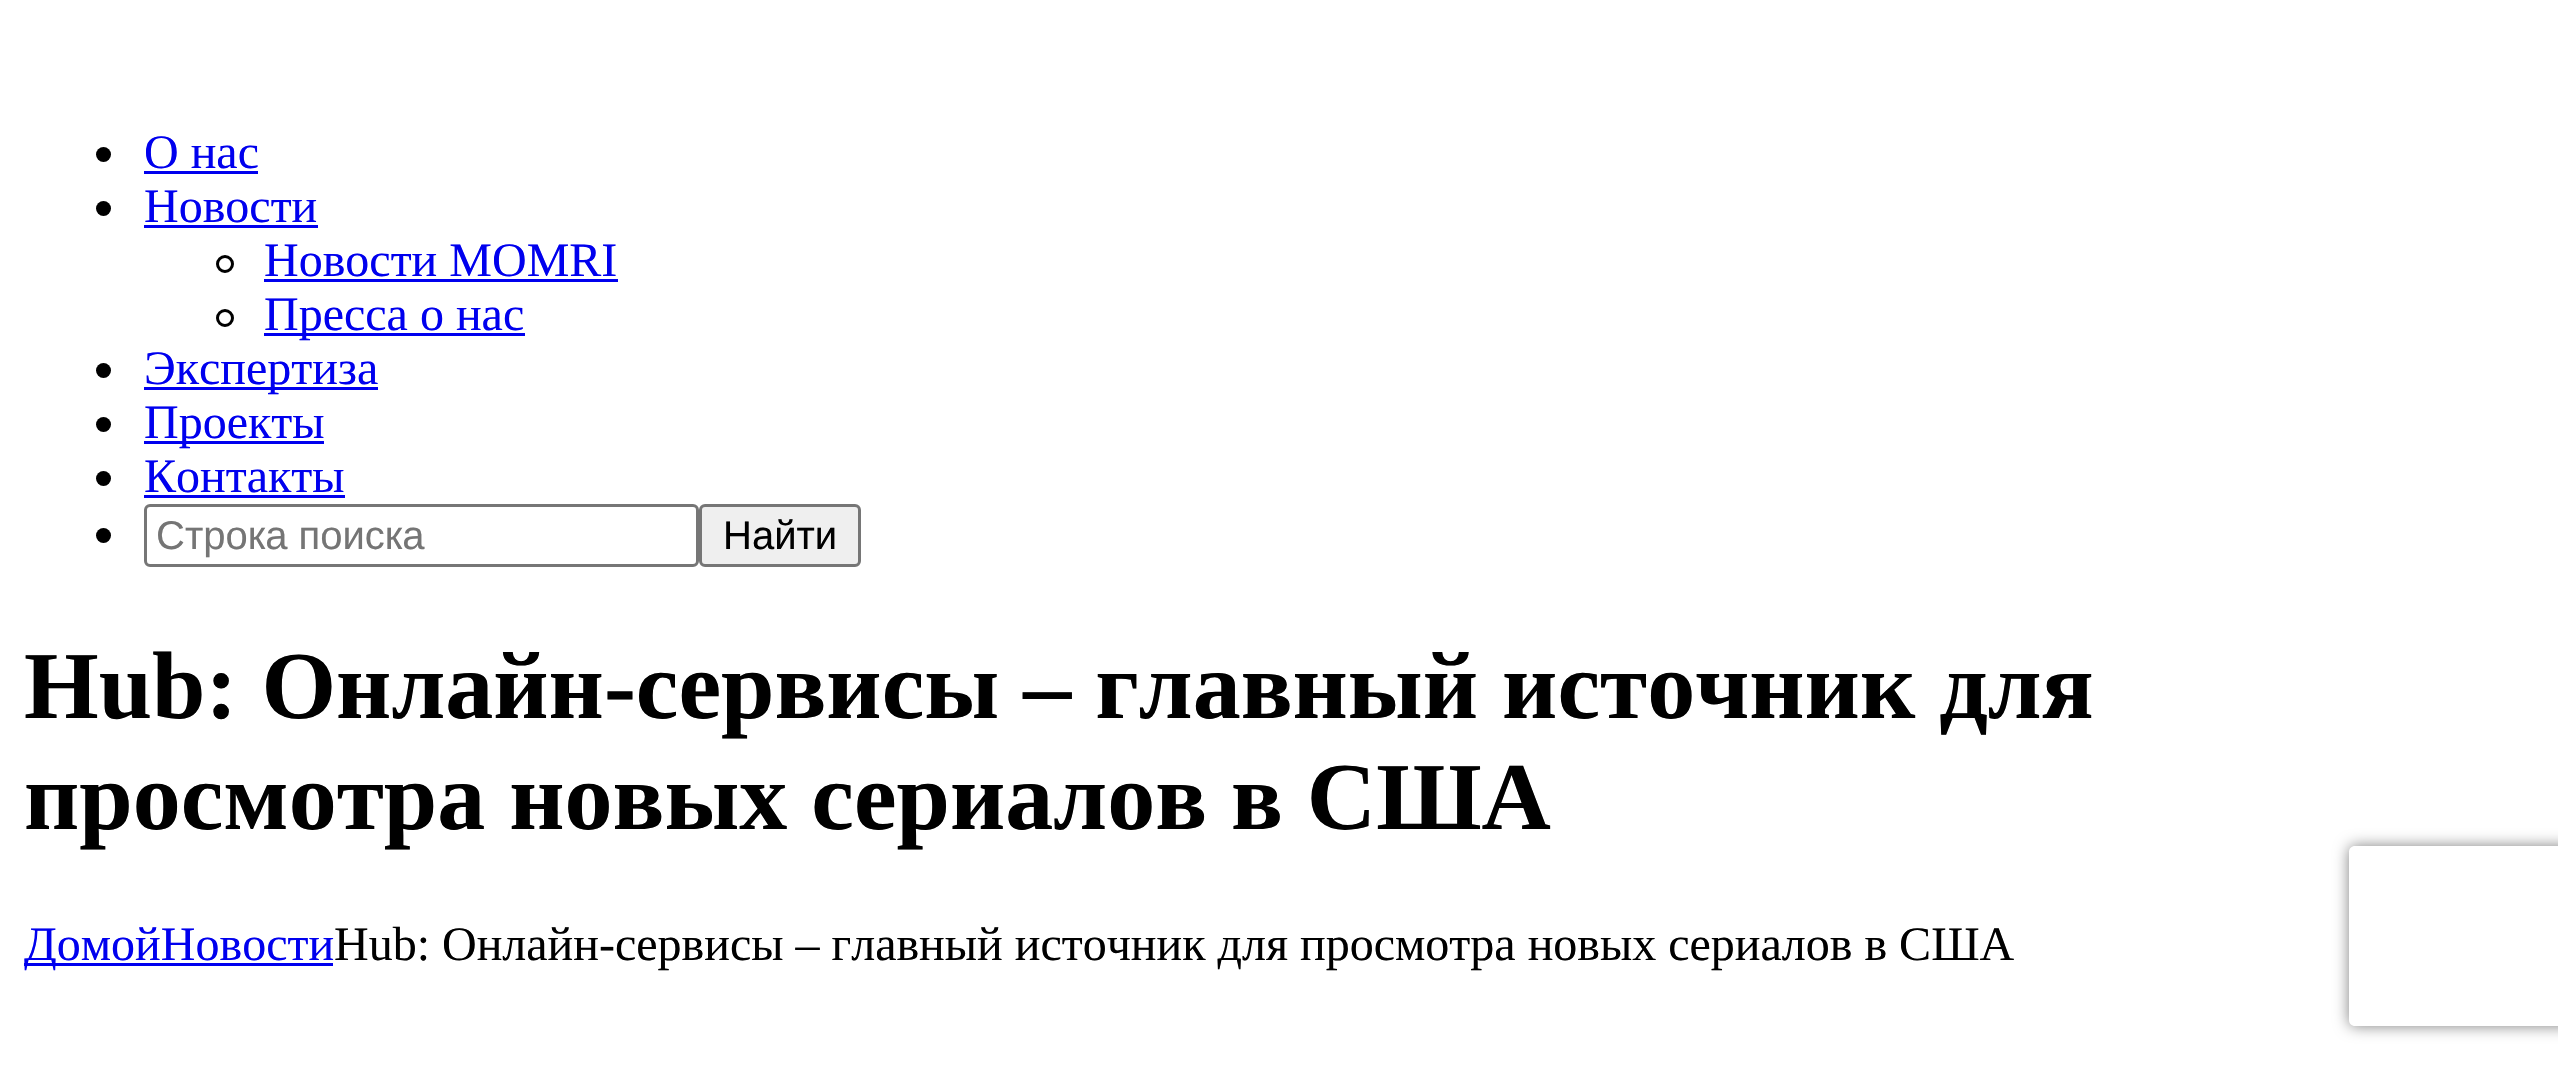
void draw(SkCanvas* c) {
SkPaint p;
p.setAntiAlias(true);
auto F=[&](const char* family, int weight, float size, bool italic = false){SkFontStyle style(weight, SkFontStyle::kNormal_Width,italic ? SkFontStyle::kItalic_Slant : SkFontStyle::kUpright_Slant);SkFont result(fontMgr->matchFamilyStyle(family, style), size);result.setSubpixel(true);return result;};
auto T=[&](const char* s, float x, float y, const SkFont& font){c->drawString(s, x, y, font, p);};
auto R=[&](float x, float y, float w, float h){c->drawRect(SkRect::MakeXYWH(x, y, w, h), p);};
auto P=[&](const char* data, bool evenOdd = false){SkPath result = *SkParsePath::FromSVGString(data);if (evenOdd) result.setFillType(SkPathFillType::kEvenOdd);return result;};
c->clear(0xffffffff);
p.setColor(0xff000000);
c->drawCircle(103.5,154.5,7.5,p);
auto f1 = F("Liberation Serif",400,48);
p.setColor(0xff0000ee);
T("О нас",144,168,f1);
R(144,171,114,3);
p.setColor(0xff000000);
c->drawCircle(103.5,208.5,7.5,p);
p.setColor(0xff0000ee);
T("Новости",144,222,f1);
R(144,225,174,3);
p.setStroke(true);
p.setStrokeWidth(3);
p.setColor(0xff000000);
c->drawCircle(225,264,7.5,p);
p.setStroke(false);
p.setColor(0xff0000ee);
T("Новости MOMRI",264,276,f1);
R(264,279,354,3);
p.setStroke(true);
p.setColor(0xff000000);
c->drawCircle(225,318,7.5,p);
p.setStroke(false);
p.setColor(0xff0000ee);
R(264,333,261,3);
T("Пресса о нас",264,330,f1);
p.setColor(0xff000000);
c->drawCircle(103.5,370.5,7.5,p);
p.setColor(0xff0000ee);
R(144,387,234,3);
T("Экспертиза",144,384,f1);
p.setColor(0xff000000);
c->drawCircle(103.5,424.5,7.5,p);
p.setColor(0xff0000ee);
R(144,441,180,3);
T("Проекты",144,438,f1);
p.setColor(0xff000000);
c->drawCircle(103.5,478.5,7.5,p);
p.setColor(0xff0000ee);
T("Контакты",144,492,f1);
R(144,495,201,3);
p.setColor(0xff000000);
c->drawCircle(103.5,535.5,7.5,p);
p.setStroke(true);
p.setColor(0xff767676);
c->drawRoundRect(SkRect::MakeXYWH(145.5,505.5,552,60),4.5,4.5,p);
auto f2 = F("Liberation Sans",400,40);
p.setStroke(false);
p.setColor(0xff757575);
T("Строка поиска",156,549,f2);
p.setColor(0xffefefef);
c->drawRoundRect(SkRect::MakeXYWH(700.5,505.5,159,60),4.5,4.5,p);
p.setStroke(true);
p.setColor(0xff767676);
c->drawRoundRect(SkRect::MakeXYWH(700.5,505.5,159,60),4.5,4.5,p);
p.setStroke(false);
p.setColor(0xff000000);
T("Найти",723,549,f2);
auto f3 = F("Liberation Serif",700,96);
T("Hub: Онлайн-сервисы – главный источник для",24,718,f3);
T("просмотра новых сериалов в США",24,829,f3);
p.setColor(0xff0000ee);
R(24,963,309,3);
T("ДомойНовости",24,960,f1);
p.setColor(0xff000000);
T("Hub: Онлайн-сервисы – главный источник для просмотра новых сериалов в США",334,960,f1);
c->save();
c->clipPath(P("M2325 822h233v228h-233zm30 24h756c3.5 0 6 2.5 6 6v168c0 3.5-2.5 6-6 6h-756c-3.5 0-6-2.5-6-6v-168c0-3.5 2.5-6 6-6z",true),true);
p.setColor(0xff808080);
p.setMaskFilter(SkMaskFilter::MakeBlur(kNormal_SkBlurStyle, 7.5));
c->drawRoundRect(SkRect::MakeXYWH(2349,846,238,180),6,6,p);
p.setMaskFilter(nullptr);
c->restore();
}
